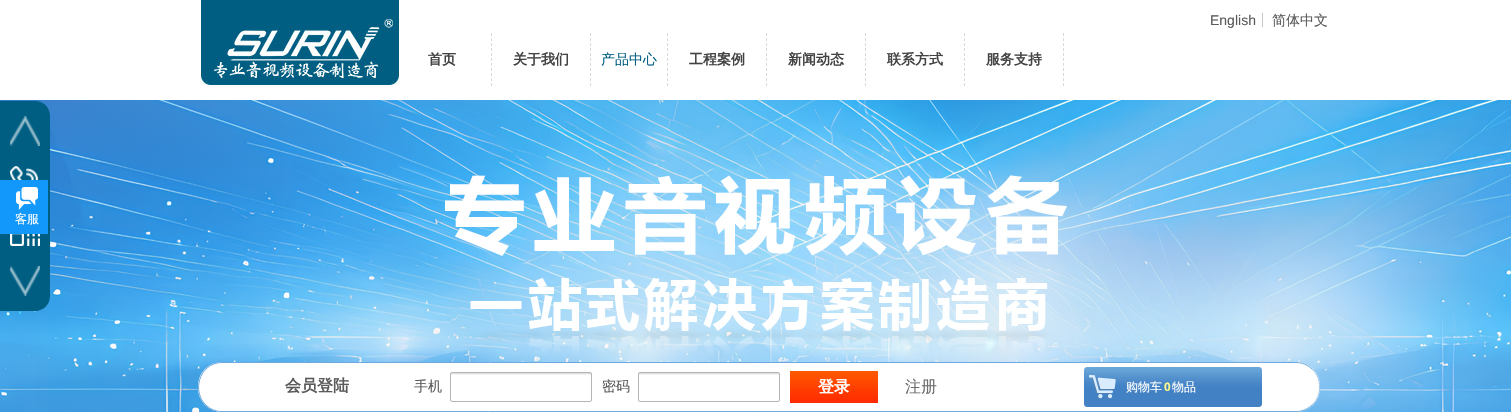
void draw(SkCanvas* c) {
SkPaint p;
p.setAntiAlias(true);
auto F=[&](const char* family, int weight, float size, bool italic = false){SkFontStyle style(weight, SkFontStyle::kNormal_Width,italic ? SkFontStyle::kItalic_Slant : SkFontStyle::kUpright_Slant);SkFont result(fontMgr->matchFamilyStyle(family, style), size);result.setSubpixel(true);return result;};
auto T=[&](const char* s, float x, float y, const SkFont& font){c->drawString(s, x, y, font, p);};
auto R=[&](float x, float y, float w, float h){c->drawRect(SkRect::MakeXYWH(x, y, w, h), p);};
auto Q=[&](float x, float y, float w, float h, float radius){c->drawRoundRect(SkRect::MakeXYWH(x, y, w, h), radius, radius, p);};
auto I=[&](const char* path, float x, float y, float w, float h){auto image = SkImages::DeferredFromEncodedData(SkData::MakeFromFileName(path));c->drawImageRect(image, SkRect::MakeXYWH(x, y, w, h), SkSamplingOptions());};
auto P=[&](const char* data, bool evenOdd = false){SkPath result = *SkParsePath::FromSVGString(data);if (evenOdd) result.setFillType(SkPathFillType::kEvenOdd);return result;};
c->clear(0xffffffff);
I("1.png",200,0,200,85);
p.setColor(0xffc6c6c6);
R(1262,13,1,14);
auto f1 = F("Liberation Sans",400,14);
p.setColor(0xff5a5a5a);
T("English",1210,25,f1);
auto f2 = F("WenQuanYi Zen Hei",500,14);
T("简体中文",1272,25,f2);
p.setStroke(true);
p.setStrokeWidth(1);
p.setColor(0xffd9d9d9);
p.setPathEffect(SkDashPathEffect::Make({{3,2}}, 0));
c->drawPath(P("M491.5 33v53"),p);
p.setPathEffect(nullptr);
auto f3 = F("WenQuanYi Zen Hei",700,14);
p.setStroke(false);
p.setColor(0xff434343);
T("首页",428,64,f3);
p.setStroke(true);
p.setColor(0xffd9d9d9);
p.setPathEffect(SkDashPathEffect::Make({{3,2}}, 0));
c->drawPath(P("M590.5 33v53"),p);
p.setPathEffect(nullptr);
p.setStroke(false);
p.setColor(0xff434343);
T("关于我们",513,64,f3);
p.setStroke(true);
p.setColor(0xffd9d9d9);
p.setPathEffect(SkDashPathEffect::Make({{3,2}}, 0));
c->drawPath(P("M667.5 33v53"),p);
p.setPathEffect(nullptr);
p.setStroke(false);
p.setColor(0xff005e82);
T("产品中心",601,64,f2);
p.setStroke(true);
p.setColor(0xffd9d9d9);
p.setPathEffect(SkDashPathEffect::Make({{3,2}}, 0));
c->drawPath(P("M766.5 33v53"),p);
p.setPathEffect(nullptr);
p.setStroke(false);
p.setColor(0xff434343);
T("工程案例",689,64,f3);
p.setStroke(true);
p.setColor(0xffd9d9d9);
p.setPathEffect(SkDashPathEffect::Make({{3,2}}, 0));
c->drawPath(P("M865.5 33v53"),p);
p.setPathEffect(nullptr);
p.setStroke(false);
p.setColor(0xff434343);
T("新闻动态",788,64,f3);
p.setStroke(true);
p.setColor(0xffd9d9d9);
p.setPathEffect(SkDashPathEffect::Make({{3,2}}, 0));
c->drawPath(P("M964.5 33v53"),p);
p.setPathEffect(nullptr);
p.setStroke(false);
p.setColor(0xff434343);
T("联系方式",887,64,f3);
p.setStroke(true);
p.setColor(0xffd9d9d9);
p.setPathEffect(SkDashPathEffect::Make({{3,2}}, 0));
c->drawPath(P("M1063.5 33v53"),p);
p.setPathEffect(nullptr);
p.setStroke(false);
p.setColor(0xff434343);
T("服务支持",986,64,f3);
I("2.png",0,100,1511,312);
p.setColor(0xff005e82);
c->drawPath(P("M0 101h35c8.5 0 15 6.5 15 15v180c0 8.5-6.5 15-15 15h-35z"),p);
I("3.png",10,116,30,30);
I("4.png",10,166,29,14);
I("5.png",10,234,30,12);
I("6.png",10,266,30,30);
p.setColor(0xff1298fa);
R(0,180,48,54);
I("7.png",16,187,22,23);
auto f4 = F("WenQuanYi Zen Hei",500,12);
p.setColor(0xffffffff);
T("客服",15,223,f4);
Q(198,362,1122,50,24);
p.setStroke(true);
p.setColor(0xff9fc5e8);
c->drawPath(P("M1312.5 369.5c9.5 9 9.5 26 0 35"),p);
p.setColor(0xff6fa8dc);
c->drawPath(P("M1312.5 404.5c-4.5 4.5-10.5 7-16.5 7h-1076.5c-4.5-.5-9-2.5-12.5-5.5c-3-2.5-5-5.5-6.5-9c-6.5-15.5 4-34.5 21.5-34.5h1074c6 0 12 2.5 16.5 7"),p);
auto f5 = F("WenQuanYi Zen Hei",700,16);
p.setStroke(false);
p.setColor(0xff5a5a5a);
T("会员登陆",285,391,f5);
T("手机",414,391,f2);
I("8.png",450,373,142,2);
p.setStroke(true);
p.setColor(0xffb5b5b5);
c->drawRoundRect(SkRect::MakeXYWH(450.5,372.5,141,29),1.5,1.5,p);
p.setStroke(false);
p.setColor(0xff5a5a5a);
T("密码",602,391,f2);
I("8.png",638,373,142,2);
p.setStroke(true);
p.setColor(0xffb5b5b5);
c->drawRoundRect(SkRect::MakeXYWH(638.5,372.5,141,29),1.5,1.5,p);
I("9.png",790,371,88,32);
p.setStroke(false);
p.setColor(0xffffffff);
T("登录",818,392,f5);
auto f6 = F("WenQuanYi Zen Hei",500,16);
p.setColor(0xff6f6f6f);
T("注册",905,392,f6);
I("10.png",1084,367,178,40);
I("11.png",1089,374,27,25);
p.setColor(0xffffffff);
T("购物车",1126,391,f4);
auto f7 = F("Liberation Sans",700,12);
p.setColor(0xfffffb8b);
T("0",1164,391,f7);
p.setColor(0xffffffff);
T("物品",1172,391,f4);
}
